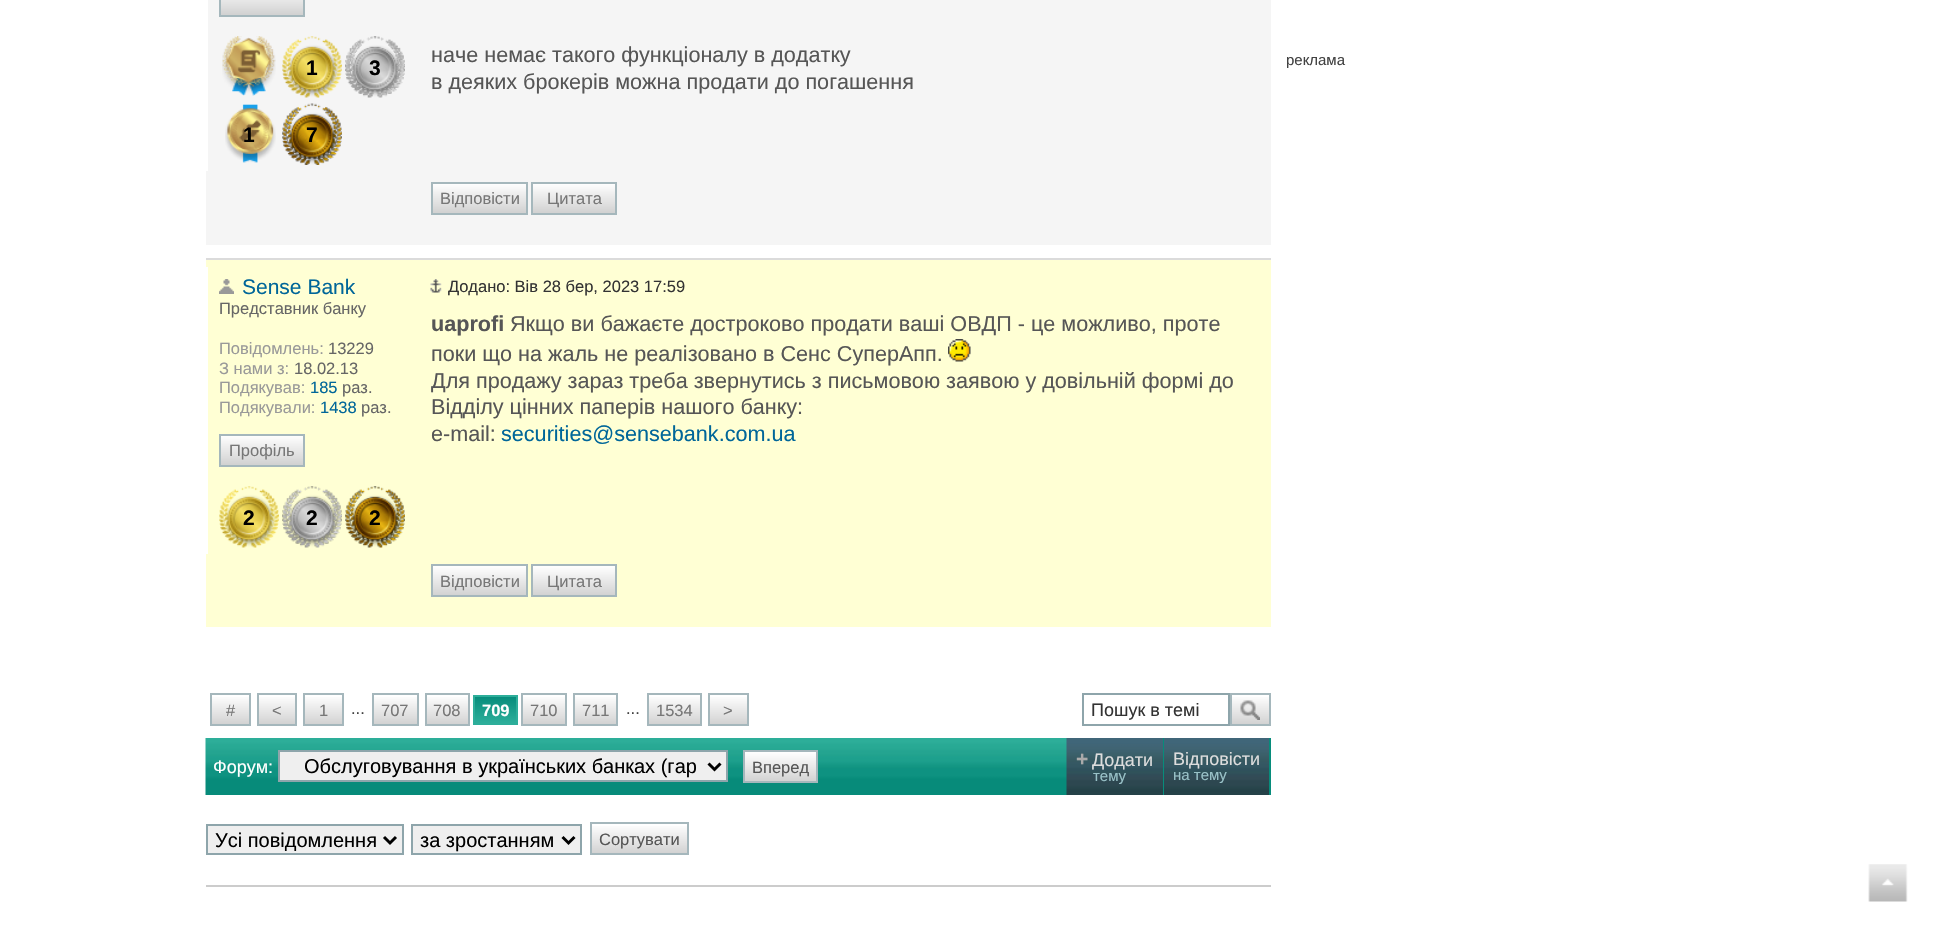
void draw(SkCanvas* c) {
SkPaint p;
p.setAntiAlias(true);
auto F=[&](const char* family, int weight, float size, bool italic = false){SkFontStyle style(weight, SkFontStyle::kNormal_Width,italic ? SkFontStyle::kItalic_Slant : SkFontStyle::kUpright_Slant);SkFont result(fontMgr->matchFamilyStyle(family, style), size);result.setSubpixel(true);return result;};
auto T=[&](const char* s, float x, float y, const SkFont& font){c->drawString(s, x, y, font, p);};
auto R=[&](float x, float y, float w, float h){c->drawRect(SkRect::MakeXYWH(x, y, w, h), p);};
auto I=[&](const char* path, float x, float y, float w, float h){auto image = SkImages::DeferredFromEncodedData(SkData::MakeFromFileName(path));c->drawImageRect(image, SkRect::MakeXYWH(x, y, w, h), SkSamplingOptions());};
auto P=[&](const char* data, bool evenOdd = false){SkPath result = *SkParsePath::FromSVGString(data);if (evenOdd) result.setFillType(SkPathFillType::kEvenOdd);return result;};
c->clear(0xffffffff);
p.setColor(0xfff5f5f5);
R(206,0,1065,245);
p.setColor(0xffffffff);
R(206,0,2,171);
{
const SkColor colors[] = {0xffffffff,0xffd1d1d1};
const float stops[] = {0,1};
const SkPoint ends[] = {{221,-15}, {221,15}};
p.setShader(SkGradientShader::MakeLinear(ends, colors, stops, 2, SkTileMode::kClamp));
p.setAlpha(255);
}
R(221,0,82,15);
p.setStroke(true);
p.setStrokeWidth(2);
p.setShader(nullptr);
p.setColor(0xffa5b7bc);
c->drawRect(SkRect::MakeXYWH(220,-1,84,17),p);
I("1.png",222,36,54,60);
I("2.png",282,36,60,62);
auto f1 = F("Liberation Sans",700,21);
p.setStroke(false);
p.setColor(0xff000000);
T("1",306,75,f1);
I("3.png",345,36,60,62);
T("3",369,75,f1);
I("4.png",225,104,51,59);
T("1",243,142,f1);
I("5.png",282,103,60,62);
T("7",306,142,f1);
auto f2 = F("Liberation Sans",400,21.6);
p.setColor(0xff565656);
T("наче немає такого функціоналу в додатку",431,62,f2);
T("в деяких брокерів можна продати до погашення",431,89,f2);
{
const SkColor colors[] = {0xffffffff,0xffd1d1d1};
const float stops[] = {0,1};
const SkPoint ends[] = {{432,183}, {432,213}};
p.setShader(SkGradientShader::MakeLinear(ends, colors, stops, 2, SkTileMode::kClamp));
p.setAlpha(255);
}
R(433,184,93,29);
p.setStroke(true);
p.setShader(nullptr);
p.setColor(0xffa5b7bc);
c->drawRect(SkRect::MakeXYWH(432,183,95,31),p);
auto f3 = F("Liberation Sans",400,16.5);
p.setStroke(false);
p.setColor(0xff777777);
T("Відповісти",440,204,f3);
{
const SkColor colors[] = {0xffffffff,0xffd1d1d1};
const float stops[] = {0,1};
const SkPoint ends[] = {{533,183}, {533,213}};
p.setShader(SkGradientShader::MakeLinear(ends, colors, stops, 2, SkTileMode::kClamp));
p.setAlpha(255);
}
R(533,184,82,29);
p.setStroke(true);
p.setShader(nullptr);
p.setColor(0xffa5b7bc);
c->drawRect(SkRect::MakeXYWH(532,183,84,31),p);
p.setStroke(false);
p.setColor(0xff777777);
T("Цитата",547,204,f3);
p.setColor(0xffffffd4);
R(206,260,1065,367);
p.setColor(0xffdbdbdb);
R(206,258,1065,2);
p.setColor(0xffffffff);
R(206,267,2,287);
I("6.png",219,279,15,15);
auto f4 = F("Liberation Sans",400,21);
p.setColor(0xff006699);
T("Sense Bank",242,294,f4);
p.setColor(0xff666666);
T("Представник банку",219,314,f3);
p.setColor(0xff999999);
T("Повідомлень:",219,354,f3);
p.setColor(0xff666666);
T("13229",328,354,f3);
p.setColor(0xff999999);
T("З нами з:",219,374,f3);
p.setColor(0xff666666);
T("18.02.13",294,374,f3);
p.setColor(0xff999999);
T("Подякував:",219,393,f3);
p.setColor(0xff006699);
T("185",310,393,f3);
p.setColor(0xff666666);
T("раз.",342,393,f3);
p.setColor(0xff999999);
T("Подякували:",219,413,f3);
p.setColor(0xff006699);
T("1438",320,413,f3);
p.setColor(0xff666666);
T("раз.",361,413,f3);
{
const SkColor colors[] = {0xffffffff,0xffd1d1d1};
const float stops[] = {0,1};
const SkPoint ends[] = {{221,435}, {221,465}};
p.setShader(SkGradientShader::MakeLinear(ends, colors, stops, 2, SkTileMode::kClamp));
p.setAlpha(255);
}
R(221,436,82,29);
p.setStroke(true);
p.setShader(nullptr);
p.setColor(0xffa5b7bc);
c->drawRect(SkRect::MakeXYWH(220,435,84,31),p);
p.setStroke(false);
p.setColor(0xff777777);
T("Профіль",229,456,f3);
I("7.png",219,486,60,62);
p.setColor(0xff000000);
T("2",243,525,f1);
I("8.png",282,486,60,62);
T("2",306,525,f1);
I("9.png",345,486,60,62);
T("2",369,525,f1);
I("10.png",430,279,12,14);
p.setColor(0xff333333);
T("Додано: Вів 28 бер, 2023 17:59",448,292,f3);
auto f5 = F("Liberation Sans",700,21.6);
p.setColor(0xff565656);
T("uaprofi",431,331,f5);
T("Якщо ви бажаєте достроково продати ваші ОВДП - це можливо, проте",510,331,f2);
T("поки що на жаль не реалізовано в Сенс СуперАпп.",431,361,f2);
I("11.png",948,339,23,23);
c->save();
c->clipRect(SkRect::MakeXYWH(431,312,825,138));
T("Для продажу зараз треба звернутись з письмовою заявою у довільній формі до",431,388,f2);
c->restore();
T("Відділу цінних паперів нашого банку:",431,414,f2);
T("е-mail:",431,441,f2);
p.setColor(0xff006699);
T("securities@sensebank.com.ua",501,441,f2);
{
const SkColor colors[] = {0xffffffff,0xffd1d1d1};
const float stops[] = {0,1};
const SkPoint ends[] = {{432,566}, {432,596}};
p.setShader(SkGradientShader::MakeLinear(ends, colors, stops, 2, SkTileMode::kClamp));
p.setAlpha(255);
}
R(433,566,93,29);
p.setStroke(true);
p.setShader(nullptr);
p.setColor(0xffa5b7bc);
c->drawRect(SkRect::MakeXYWH(432,565,95,31),p);
p.setStroke(false);
p.setColor(0xff777777);
T("Відповісти",440,587,f3);
{
const SkColor colors[] = {0xffffffff,0xffd1d1d1};
const float stops[] = {0,1};
const SkPoint ends[] = {{533,566}, {533,596}};
p.setShader(SkGradientShader::MakeLinear(ends, colors, stops, 2, SkTileMode::kClamp));
p.setAlpha(255);
}
R(533,566,82,29);
p.setStroke(true);
p.setShader(nullptr);
p.setColor(0xffa5b7bc);
c->drawRect(SkRect::MakeXYWH(532,565,84,31),p);
p.setStroke(false);
p.setColor(0xff777777);
T("Цитата",547,587,f3);
{
const SkColor colors[] = {0xffffffff,0xffd1d1d1};
const float stops[] = {0,1};
const SkPoint ends[] = {{230,695}, {230,725}};
p.setShader(SkGradientShader::MakeLinear(ends, colors, stops, 2, SkTileMode::kClamp));
p.setAlpha(255);
}
R(212,697,37,27);
p.setStroke(true);
p.setShader(nullptr);
p.setColor(0xffa5b7bc);
c->drawRect(SkRect::MakeXYWH(211,694,39,31),p);
p.setStroke(false);
p.setColor(0xff777777);
T("#",226,716,f3);
{
const SkColor colors[] = {0xffffffff,0xffd1d1d1};
const float stops[] = {0,1};
const SkPoint ends[] = {{277,695}, {277,725}};
p.setShader(SkGradientShader::MakeLinear(ends, colors, stops, 2, SkTileMode::kClamp));
p.setAlpha(255);
}
R(259,697,36,27);
p.setStroke(true);
p.setShader(nullptr);
p.setColor(0xffa5b7bc);
c->drawRect(SkRect::MakeXYWH(258,694,38,31),p);
p.setStroke(false);
p.setColor(0xff777777);
T("<",272,716,f3);
{
const SkColor colors[] = {0xffffffff,0xffd1d1d1};
const float stops[] = {0,1};
const SkPoint ends[] = {{323,695}, {323,725}};
p.setShader(SkGradientShader::MakeLinear(ends, colors, stops, 2, SkTileMode::kClamp));
p.setAlpha(255);
}
R(305,697,37,27);
p.setStroke(true);
p.setShader(nullptr);
p.setColor(0xffa5b7bc);
c->drawRect(SkRect::MakeXYWH(304,694,39,31),p);
p.setStroke(false);
p.setColor(0xff777777);
T("1",319,716,f3);
p.setColor(0xff414141);
T("...",351,714,f3);
{
const SkColor colors[] = {0xffffffff,0xffd1d1d1};
const float stops[] = {0,1};
const SkPoint ends[] = {{395,695}, {395,725}};
p.setShader(SkGradientShader::MakeLinear(ends, colors, stops, 2, SkTileMode::kClamp));
p.setAlpha(255);
}
R(374,697,43,27);
p.setStroke(true);
p.setShader(nullptr);
p.setColor(0xffa5b7bc);
c->drawRect(SkRect::MakeXYWH(373,694,45,31),p);
p.setStroke(false);
p.setColor(0xff777777);
T("707",381,716,f3);
{
const SkColor colors[] = {0xffffffff,0xffd1d1d1};
const float stops[] = {0,1};
const SkPoint ends[] = {{447,695}, {447,725}};
p.setShader(SkGradientShader::MakeLinear(ends, colors, stops, 2, SkTileMode::kClamp));
p.setAlpha(255);
}
R(427,697,41,27);
p.setStroke(true);
p.setShader(nullptr);
p.setColor(0xffa5b7bc);
c->drawRect(SkRect::MakeXYWH(426,694,43,31),p);
p.setStroke(false);
p.setColor(0xff777777);
T("708",433,716,f3);
{
const SkColor colors[] = {0xff068b7a,0xff2dae9a};
const float stops[] = {0,1};
const SkPoint ends[] = {{495,696}, {495,723}};
p.setShader(SkGradientShader::MakeLinear(ends, colors, stops, 2, SkTileMode::kClamp));
p.setAlpha(255);
}
R(475,697,41,26);
p.setStroke(true);
p.setShader(nullptr);
p.setColor(0xff2dae9a);
c->drawRect(SkRect::MakeXYWH(474,696,43,28),p);
auto f6 = F("Liberation Sans",700,16.5);
p.setStroke(false);
p.setColor(0xffffffff);
T("709",482,716,f6);
{
const SkColor colors[] = {0xffffffff,0xffd1d1d1};
const float stops[] = {0,1};
const SkPoint ends[] = {{544,695}, {544,725}};
p.setShader(SkGradientShader::MakeLinear(ends, colors, stops, 2, SkTileMode::kClamp));
p.setAlpha(255);
}
R(523,697,42,27);
p.setStroke(true);
p.setShader(nullptr);
p.setColor(0xffa5b7bc);
c->drawRect(SkRect::MakeXYWH(522,694,44,31),p);
p.setStroke(false);
p.setColor(0xff777777);
T("710",530,716,f3);
{
const SkColor colors[] = {0xffffffff,0xffd1d1d1};
const float stops[] = {0,1};
const SkPoint ends[] = {{596,695}, {596,725}};
p.setShader(SkGradientShader::MakeLinear(ends, colors, stops, 2, SkTileMode::kClamp));
p.setAlpha(255);
}
R(575,697,41,27);
p.setStroke(true);
p.setShader(nullptr);
p.setColor(0xffa5b7bc);
c->drawRect(SkRect::MakeXYWH(574,694,43,31),p);
p.setStroke(false);
p.setColor(0xff777777);
T("711",582,716,f3);
p.setColor(0xff414141);
T("...",626,714,f3);
{
const SkColor colors[] = {0xffffffff,0xffd1d1d1};
const float stops[] = {0,1};
const SkPoint ends[] = {{674,695}, {674,725}};
p.setShader(SkGradientShader::MakeLinear(ends, colors, stops, 2, SkTileMode::kClamp));
p.setAlpha(255);
}
R(649,697,51,27);
p.setStroke(true);
p.setShader(nullptr);
p.setColor(0xffa5b7bc);
c->drawRect(SkRect::MakeXYWH(648,694,53,31),p);
p.setStroke(false);
p.setColor(0xff777777);
T("1534",656,716,f3);
{
const SkColor colors[] = {0xffffffff,0xffd1d1d1};
const float stops[] = {0,1};
const SkPoint ends[] = {{728,695}, {728,725}};
p.setShader(SkGradientShader::MakeLinear(ends, colors, stops, 2, SkTileMode::kClamp));
p.setAlpha(255);
}
R(710,697,37,27);
p.setStroke(true);
p.setShader(nullptr);
p.setColor(0xffa5b7bc);
c->drawRect(SkRect::MakeXYWH(709,694,39,31),p);
p.setStroke(false);
p.setColor(0xff777777);
T(">",723,716,f3);
p.setStroke(true);
p.setColor(0xff8ea5ab);
c->drawRect(SkRect::MakeXYWH(1083,694,146,31),p);
auto f7 = F("Liberation Sans",400,18);
p.setStroke(false);
p.setColor(0xff333333);
T("Пошук в темі",1091,716,f7);
{
const SkColor colors[] = {0xffffffff,0xffd1d1d1};
const float stops[] = {0,1};
const SkPoint ends[] = {{1232,695}, {1232,725}};
p.setShader(SkGradientShader::MakeLinear(ends, colors, stops, 2, SkTileMode::kClamp));
p.setAlpha(255);
}
R(1232,697,37,27);
p.setStroke(true);
p.setShader(nullptr);
p.setColor(0xffa5b7bc);
c->drawRect(SkRect::MakeXYWH(1231,694,39,31),p);
I("12.png",1240,700,20,20);
I("13.png",205,738,862,57);
p.setStroke(false);
p.setColor(0xffffffff);
T("Форум:",213,773,f7);
p.setColor(0xffefefef);
c->drawRect(SkRect::MakeXYWH(279,751,448,30),p);
p.setStroke(true);
p.setColor(0xff8ea5ab);
c->drawRect(SkRect::MakeXYWH(279,751,448,30),p);
p.setStrokeWidth(3);
p.setColor(0xff000000);
c->drawPath(P("M708.5 763.5l6 6l6-6"),p);
auto f8 = F("Liberation Sans",400,20);
p.setStroke(false);
T("Обслуговування в українських банках (гар",304,773,f8);
{
const SkColor colors[] = {0xffffffff,0xffd1d1d1};
const float stops[] = {0,1};
const SkPoint ends[] = {{744,752}, {744,782}};
p.setShader(SkGradientShader::MakeLinear(ends, colors, stops, 2, SkTileMode::kClamp));
p.setAlpha(255);
}
R(745,752,71,29);
p.setStroke(true);
p.setStrokeWidth(2);
p.setShader(nullptr);
p.setColor(0xffa5b7bc);
c->drawRect(SkRect::MakeXYWH(744,751,73,31),p);
p.setStroke(false);
p.setColor(0xff565656);
T("Вперед",752,773,f3);
I("14.png",1066,738,97,57);
p.setColor(0xff078c7b);
R(1163,738,1,57);
p.setColor(0xffaaaaaa);
T("+",1076,766,f1);
p.setColor(0xffdddddd);
T("Додати",1092,766,f7);
auto f9 = F("Liberation Sans",400,15);
p.setColor(0xff99c2c8);
T("тему",1093,781,f9);
I("15.png",1164,738,105,57);
p.setColor(0xff078c7b);
R(1269,738,2,57);
p.setColor(0xffdddddd);
T("Відповісти",1173,765,f7);
p.setColor(0xff99c2c8);
T("на тему",1173,780,f9);
p.setColor(0xffefefef);
c->drawRect(SkRect::MakeXYWH(207,825,196,29),p);
p.setStroke(true);
p.setColor(0xff8ea5ab);
c->drawRect(SkRect::MakeXYWH(207,825,196,29),p);
p.setStrokeWidth(3);
p.setColor(0xff000000);
c->drawPath(P("M384 837l6 6l6-6"),p);
p.setStroke(false);
T("Усі повідомлення",215,847,f8);
p.setColor(0xffefefef);
c->drawRect(SkRect::MakeXYWH(412,825,169,29),p);
p.setStroke(true);
p.setStrokeWidth(2);
p.setColor(0xff8ea5ab);
c->drawRect(SkRect::MakeXYWH(412,825,169,29),p);
p.setStrokeWidth(3);
p.setColor(0xff000000);
c->drawPath(P("M562.5 837l6 6l6-6"),p);
p.setStroke(false);
T("за зростанням",420,847,f8);
{
const SkColor colors[] = {0xffffffff,0xffd1d1d1};
const float stops[] = {0,1};
const SkPoint ends[] = {{591,824}, {591,854}};
p.setShader(SkGradientShader::MakeLinear(ends, colors, stops, 2, SkTileMode::kClamp));
p.setAlpha(255);
}
R(592,826,95,27);
p.setStroke(true);
p.setStrokeWidth(2);
p.setShader(nullptr);
p.setColor(0xffa5b7bc);
c->drawRect(SkRect::MakeXYWH(591,823,97,31),p);
p.setStroke(false);
p.setColor(0xff565656);
T("Сортувати",599,845,f3);
p.setColor(0xffcccccc);
R(206,885,1065,2);
p.setColor(0xff414141);
T("реклама",1286,65,f9);
I("16.png",1868,864,40,38);
}
